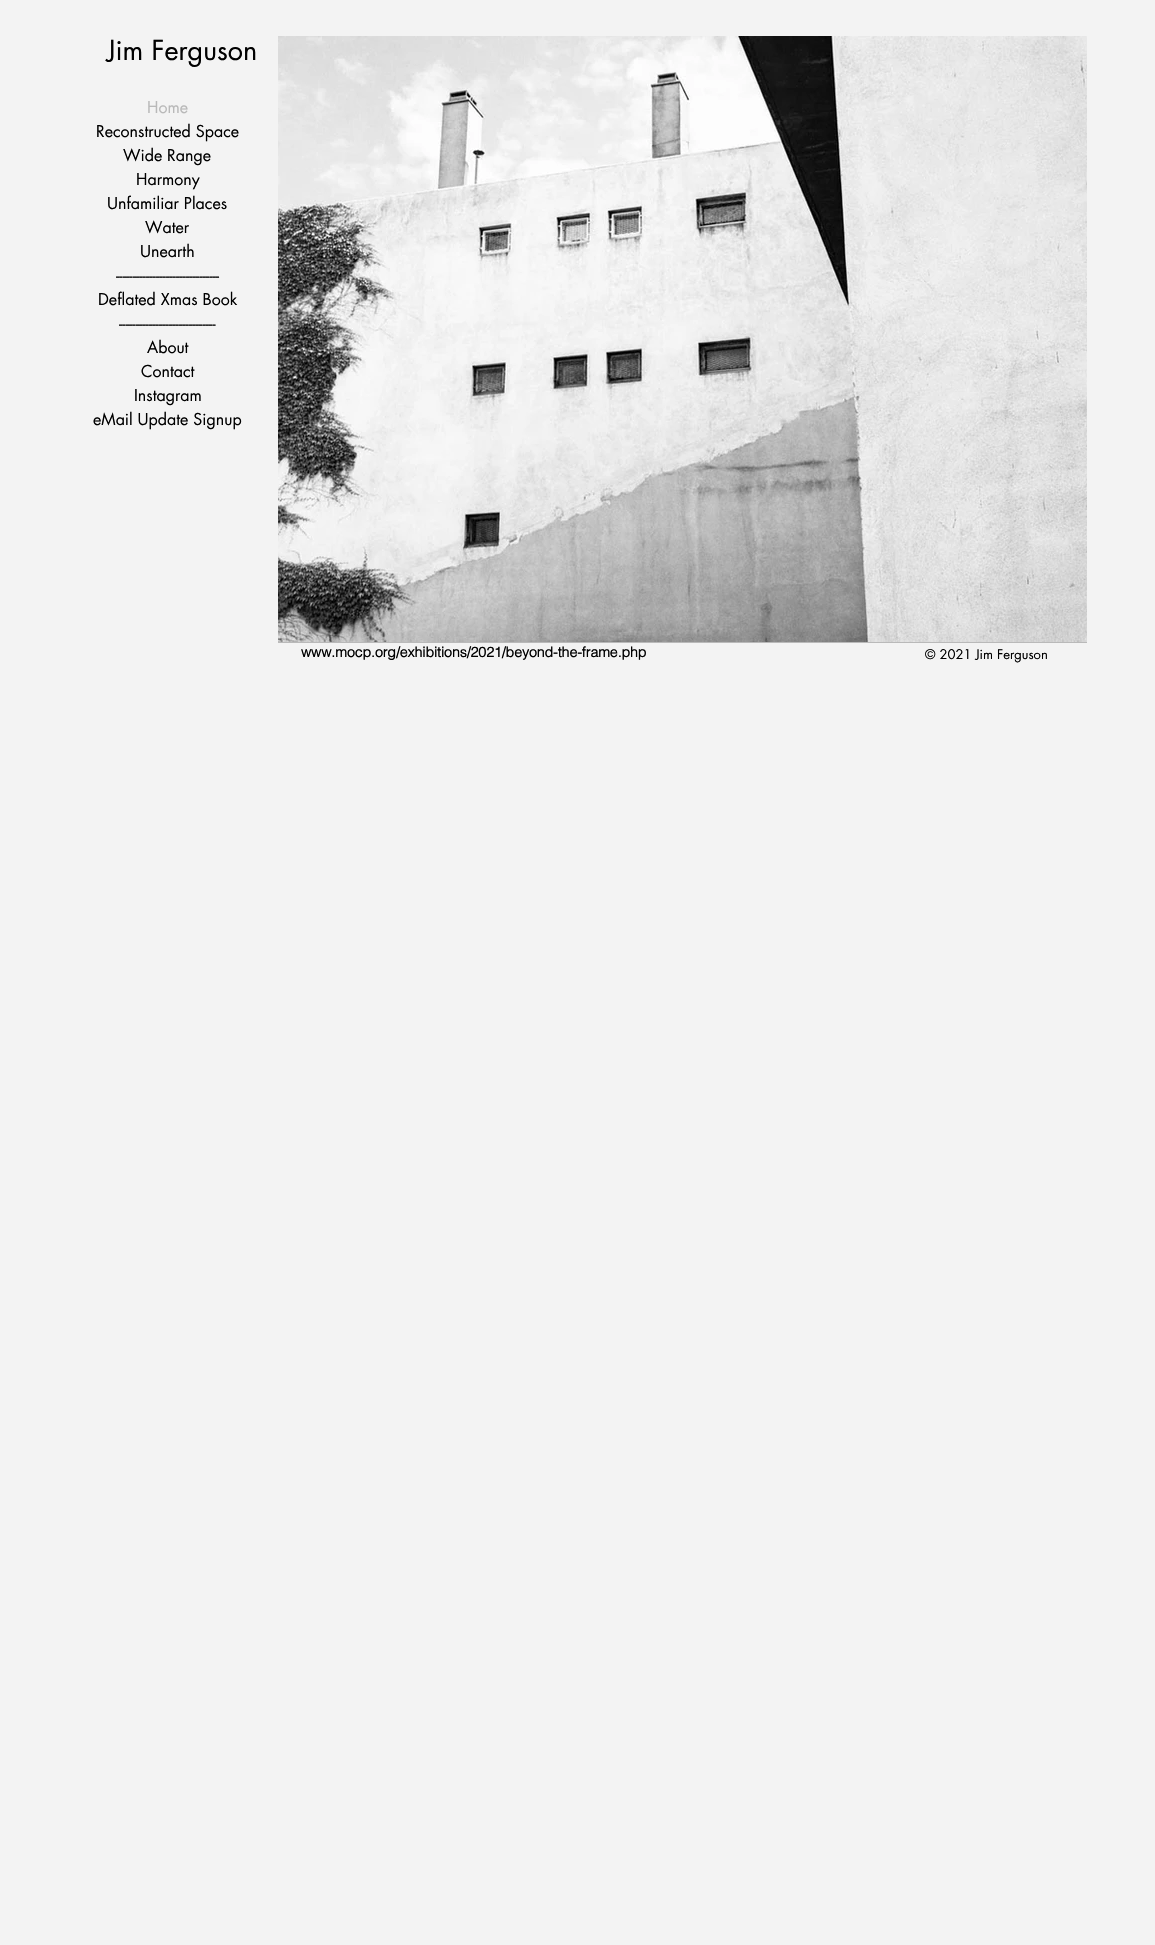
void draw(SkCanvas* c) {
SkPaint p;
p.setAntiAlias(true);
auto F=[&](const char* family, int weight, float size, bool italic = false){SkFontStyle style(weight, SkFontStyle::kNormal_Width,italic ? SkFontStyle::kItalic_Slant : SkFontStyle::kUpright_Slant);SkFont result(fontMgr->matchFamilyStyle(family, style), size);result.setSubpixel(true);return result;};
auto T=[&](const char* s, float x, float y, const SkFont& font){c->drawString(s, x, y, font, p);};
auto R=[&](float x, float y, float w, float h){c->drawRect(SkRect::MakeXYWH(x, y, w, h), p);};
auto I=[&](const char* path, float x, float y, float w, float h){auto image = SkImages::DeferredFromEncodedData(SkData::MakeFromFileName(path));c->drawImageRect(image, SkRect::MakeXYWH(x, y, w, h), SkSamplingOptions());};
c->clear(0xfff3f3f3);
auto f1 = F("futura",400,27);
p.setColor(0xff000000);
T("Jim Ferguson",107,60,f1);
auto f2 = F("futura",400,16);
p.setColor(0xffb9b9b9);
T("Home",147,113,f2);
p.setColor(0xff000000);
T("Reconstructed Space",96,137,f2);
T("Wide Range",123,161,f2);
T("Harmony",136,185,f2);
T("Unfamiliar Places",107,209,f2);
T("Water",145,233,f2);
T("Unearth",140,257,f2);
T("-------------------------------",116,281,f2);
T("Deflated Xmas Book",98,305,f2);
T("-----------------------------",119,329,f2);
T("About",147,353,f2);
T("Contact",141,377,f2);
T("Instagram",134,401,f2);
T("eMail Update Signup",93,425,f2);
p.setColor(0xffb9b9b9);
R(278,642,809,1);
I("1.png",278,36,809,606);
auto f3 = F("helvetica",700,14);
p.setColor(0xff000000);
T("www.mocp.org/exhibitions/2021/beyond-the-frame.php",301,657,f3);
auto f4 = F("futura",400,13);
T("© 2021 Jim Ferguson",925,659,f4);
}
